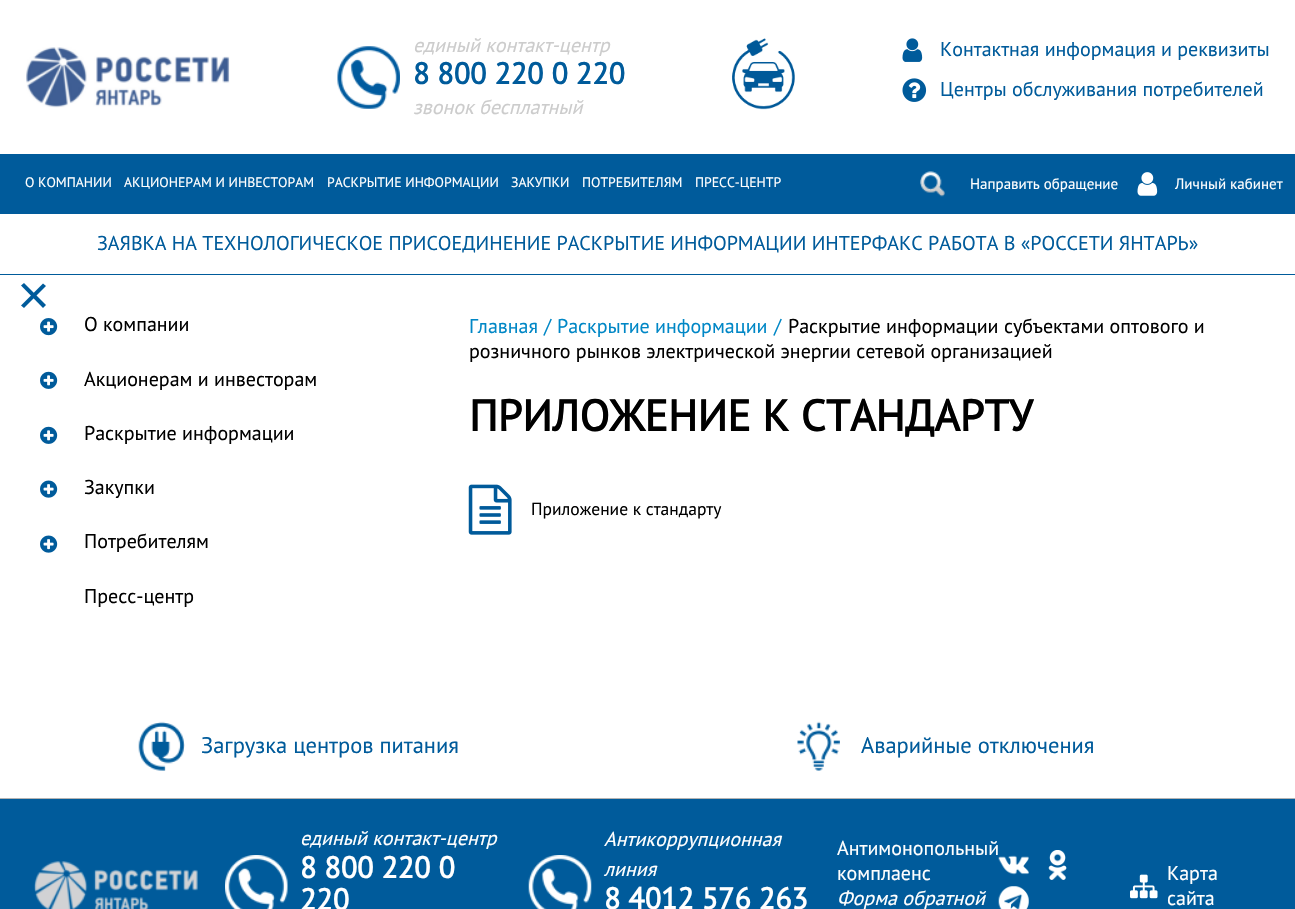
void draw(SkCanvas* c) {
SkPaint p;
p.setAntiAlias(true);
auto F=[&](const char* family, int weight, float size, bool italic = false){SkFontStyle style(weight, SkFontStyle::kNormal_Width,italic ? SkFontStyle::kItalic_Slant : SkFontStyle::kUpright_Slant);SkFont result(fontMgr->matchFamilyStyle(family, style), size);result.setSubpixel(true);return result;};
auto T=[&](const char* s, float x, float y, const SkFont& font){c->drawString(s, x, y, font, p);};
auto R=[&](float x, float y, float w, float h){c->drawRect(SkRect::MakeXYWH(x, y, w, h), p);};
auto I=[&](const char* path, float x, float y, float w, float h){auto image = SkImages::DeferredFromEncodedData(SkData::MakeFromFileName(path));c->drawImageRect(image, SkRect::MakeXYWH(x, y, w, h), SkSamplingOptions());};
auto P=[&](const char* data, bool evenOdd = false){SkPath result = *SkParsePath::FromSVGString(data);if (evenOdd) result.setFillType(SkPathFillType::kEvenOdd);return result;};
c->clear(0xffffffff);
I("1.png",26,47,204,61);
I("2.png",337,46,63,63);
auto f1 = F("PT Sans",400,20,true);
p.setColor(0xffcccccc);
T("единый контакт-центр",413,52,f1);
auto f2 = F("PT Sans",700,30);
p.setColor(0xff005b9b);
T("8 800 220 0 220",413,84,f2);
p.setColor(0xffcccccc);
T("звонок бесплатный",413,114,f1);
I("3.png",732,38,63,72);
I("4.png",902,38,21,24);
auto f3 = F("PT Sans",400,20);
p.setColor(0xff005b9b);
T("Контактная информация и реквизиты",940,56,f3);
I("5.png",902,78,25,24);
T("Центры обслуживания потребителей",940,96,f3);
R(0,154,1295,60);
auto f4 = F("PT Sans",400,13.75);
p.setColor(0xffffffff);
T("О КОМПАНИИ",25,187,f4);
T("АКЦИОНЕРАМ И ИНВЕСТОРАМ",124,187,f4);
T("РАСКРЫТИЕ ИНФОРМАЦИИ",327,187,f4);
T("ЗАКУПКИ",511,187,f4);
T("ПОТРЕБИТЕЛЯМ",582,187,f4);
T("ПРЕСС-ЦЕНТР",695,187,f4);
I("6.png",920,171,25,26);
auto f5 = F("PT Sans",400,15);
T("Направить обращение",970,189,f5);
I("7.png",1137,172,21,24);
T("Личный кабинет",1175,189,f5);
p.setColor(0xff005b9b);
R(0,274,1295,1);
T("ЗАЯВКА НА ТЕХНОЛОГИЧЕСКОЕ ПРИСОЕДИНЕНИЕ РАСКРЫТИЕ ИНФОРМАЦИИ ИНТЕРФАКС РАБОТА В «РОССЕТИ ЯНТАРЬ»",97,250,f3);
c->drawPath(P("M21 305.5l22-22l3 2.5l-22 22z"),p);
c->drawPath(P("M24 283l22 22l-3 3l-22-22.5z"),p);
I("8.png",40,318,18,18);
p.setColor(0xff000000);
T("О компании",84,331,f3);
I("9.png",40,371,18,18);
T("Акционерам и инвесторам",84,386,f3);
I("9.png",40,426,18,18);
T("Раскрытие информации",84,440,f3);
I("10.png",40,480,18,18);
T("Закупки",84,494,f3);
I("10.png",40,535,18,18);
T("Потребителям",84,548,f3);
T("Пресс-центр",84,603,f3);
p.setColor(0xff0087c6);
T("Главная",469,333,f3);
T("/",544,333,f3);
T("Раскрытие информации",557,333,f3);
T("/",774,333,f3);
p.setColor(0xff000000);
T("Раскрытие информации субъектами оптового и",788,333,f3);
T("розничного рынков электрической энергии сетевой организацией",469,358,f3);
auto f6 = F("PT Sans",700,43.75);
T("ПРИЛОЖЕНИЕ К СТАНДАРТУ",469,431,f6);
I("11.png",468,484,44,51);
auto f7 = F("PT Sans",400,17.5);
T("Приложение к стандарту",531,515,f7);
p.setColor(0xffb3b3b3);
R(0,798,1295,1);
I("12.png",138,721,47,50);
auto f8 = F("PT Sans",400,22.5);
p.setColor(0xff005b9b);
T("Загрузка центров питания",201,753,f8);
I("13.png",797,721,43,50);
T("Аварийные отключения",861,753,f8);
R(0,799,1295,110);
I("14.png",34,861,164,48);
p.setColor(0xffffffff);
T("единый контакт-центр",300,845,f1);
I("15.png",225,855,63,54);
T("8 800 220 0",300,878,f2);
T("220",300,910,f2);
I("16.png",528,855,64,54);
T("Антикоррупционная",604,846,f1);
T("линия",604,876,f1);
T("8 4012 576 263",604,909,f2);
T("Антимонопольный",837,855,f3);
T("комплаенс",837,880,f3);
T("Форма обратной",837,905,f1);
I("17.png",998,855,31,20);
I("18.png",1048,850,19,30);
I("19.png",998,886,31,23);
I("20.png",1130,874,28,25);
T("Карта",1167,880,f3);
T("сайта",1167,905,f3);
}
